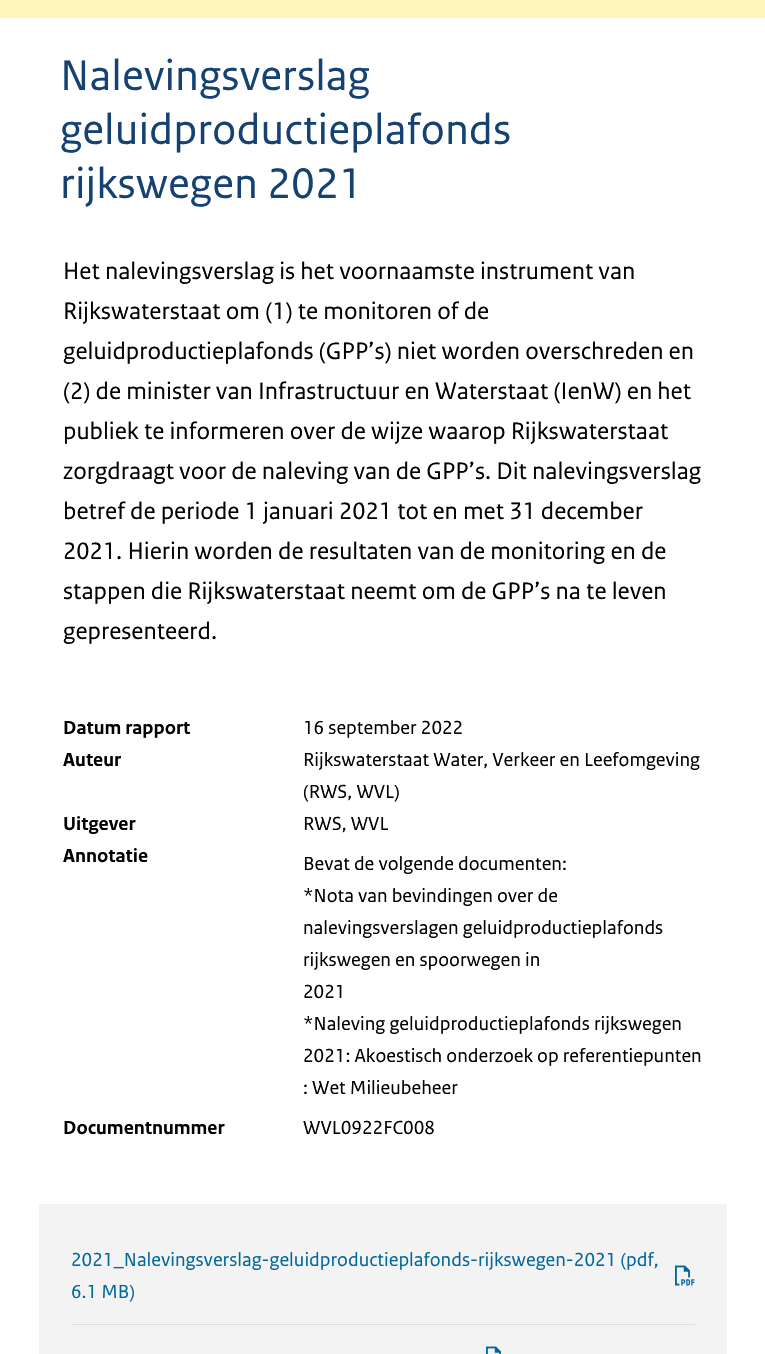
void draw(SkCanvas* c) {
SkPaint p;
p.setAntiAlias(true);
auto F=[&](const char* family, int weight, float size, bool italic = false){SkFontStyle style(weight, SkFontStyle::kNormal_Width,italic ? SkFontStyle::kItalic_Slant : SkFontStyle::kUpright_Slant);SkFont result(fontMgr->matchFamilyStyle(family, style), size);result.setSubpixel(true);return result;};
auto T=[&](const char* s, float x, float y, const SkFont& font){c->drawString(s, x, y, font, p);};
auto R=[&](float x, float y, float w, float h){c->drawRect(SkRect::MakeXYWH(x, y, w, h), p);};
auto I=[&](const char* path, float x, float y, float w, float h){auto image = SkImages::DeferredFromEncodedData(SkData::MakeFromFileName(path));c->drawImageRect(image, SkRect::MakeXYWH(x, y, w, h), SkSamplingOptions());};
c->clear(0xffffffff);
p.setColor(0xfffdf6bb);
R(0,0,765,18);
auto f1 = F("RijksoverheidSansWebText",400,45);
p.setColor(0xff154273);
T("Nalevingsverslag",60,90,f1);
T("geluidproductieplafonds",60,144,f1);
T("rijkswegen 2021",60,198,f1);
auto f2 = F("RijksoverheidSansWebText",400,25);
p.setColor(0xff000000);
T("Het nalevingsverslag is het voornaamste instrument van",63,279,f2);
T("Rijkswaterstaat om (1) te monitoren of de",63,319,f2);
T("geluidproductieplafonds (GPP’s) niet worden overschreden en",63,359,f2);
T("(2) de minister van Infrastructuur en Waterstaat (IenW) en het",63,399,f2);
T("publiek te informeren over de wijze waarop Rijkswaterstaat",63,439,f2);
T("zorgdraagt voor de naleving van de GPP’s. Dit nalevingsverslag",63,479,f2);
T("betref de periode 1 januari 2021 tot en met 31 december",63,519,f2);
T("2021. Hierin worden de resultaten van de monitoring en de",63,559,f2);
T("stappen die Rijkswaterstaat neemt om de GPP’s na te leven",63,599,f2);
T("gepresenteerd.",63,639,f2);
auto f3 = F("RijksoverheidSansWebText",700,20);
T("Datum rapport",63,734,f3);
auto f4 = F("RijksoverheidSansWebText",400,20);
T("16 september 2022",303,734,f4);
T("Auteur",63,766,f3);
T("Rijkswaterstaat Water, Verkeer en Leefomgeving",303,766,f4);
T("(RWS, WVL)",303,798,f4);
T("Uitgever",63,830,f3);
T("RWS, WVL",303,830,f4);
T("Annotatie",63,862,f3);
T("Bevat de volgende documenten:",303,870,f4);
T("*Nota van bevindingen over de",303,902,f4);
T("nalevingsverslagen geluidproductieplafonds",303,934,f4);
T("rijkswegen en spoorwegen in",303,966,f4);
T("2021",303,998,f4);
T("*Naleving geluidproductieplafonds rijkswegen",303,1030,f4);
T("2021: Akoestisch onderzoek op referentiepunten",303,1062,f4);
T(": Wet Milieubeheer",303,1094,f4);
T("Documentnummer",63,1134,f3);
T("WVL0922FC008",303,1134,f4);
p.setColor(0xfff3f3f3);
R(39,1204,688,150);
p.setColor(0xffdddddd);
R(71,1324,624,1);
p.setColor(0xff01689b);
T("2021_Nalevingsverslag-geluidproductieplafonds-rijkswegen-2021 (pdf,",71,1266,f4);
T("6.1 MB)",71,1298,f4);
I("1.png",675,1265,20,21);
I("2.png",486,1346,15,8);
}
